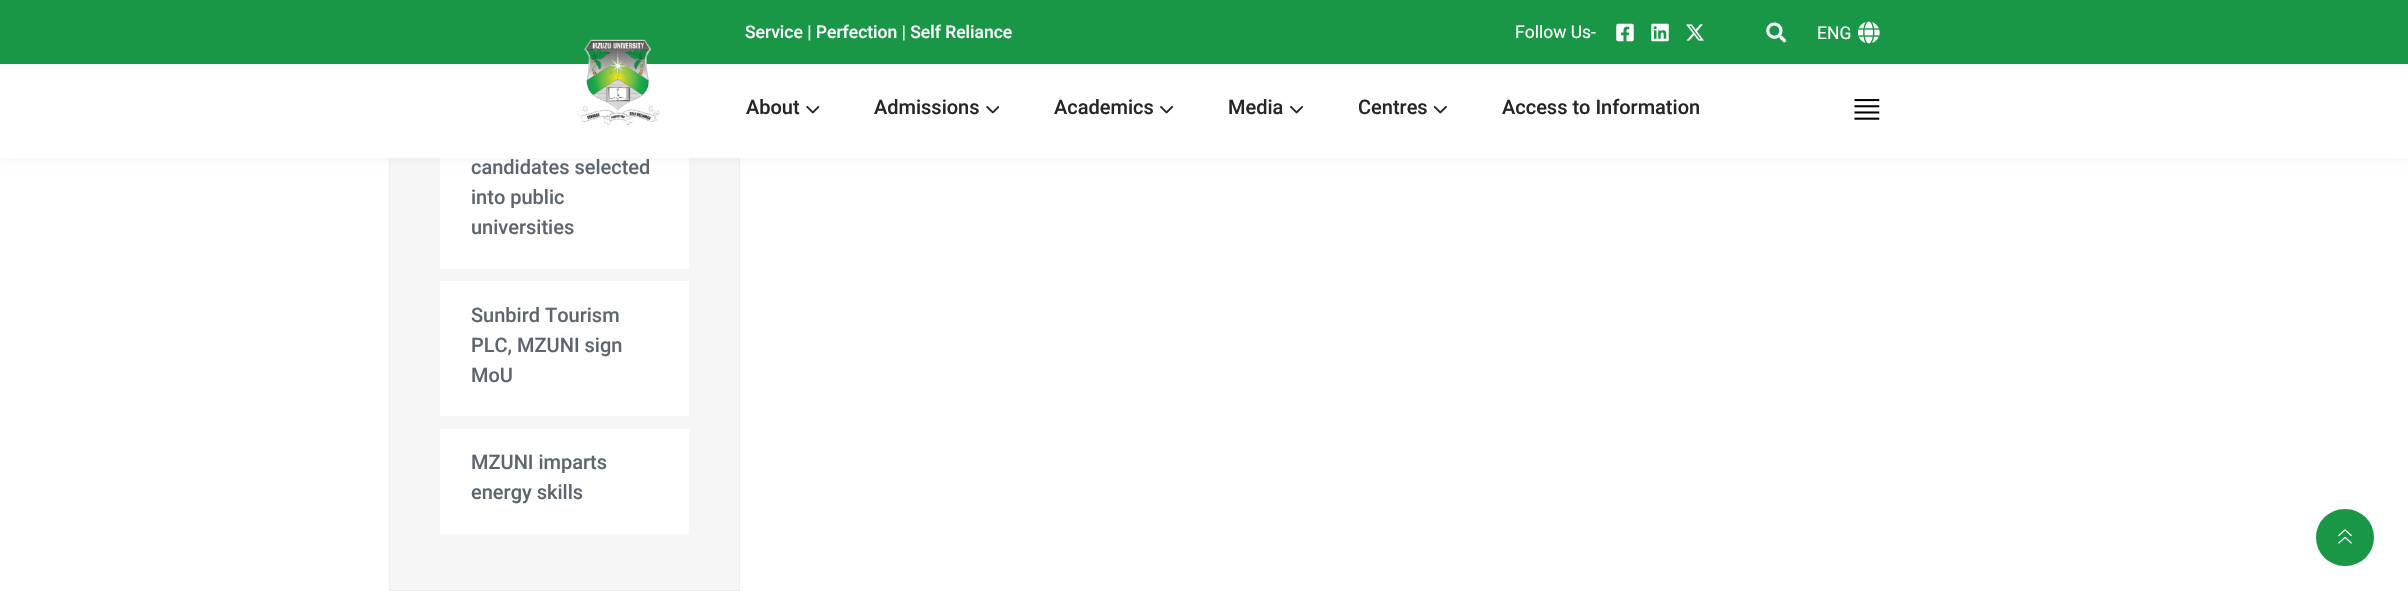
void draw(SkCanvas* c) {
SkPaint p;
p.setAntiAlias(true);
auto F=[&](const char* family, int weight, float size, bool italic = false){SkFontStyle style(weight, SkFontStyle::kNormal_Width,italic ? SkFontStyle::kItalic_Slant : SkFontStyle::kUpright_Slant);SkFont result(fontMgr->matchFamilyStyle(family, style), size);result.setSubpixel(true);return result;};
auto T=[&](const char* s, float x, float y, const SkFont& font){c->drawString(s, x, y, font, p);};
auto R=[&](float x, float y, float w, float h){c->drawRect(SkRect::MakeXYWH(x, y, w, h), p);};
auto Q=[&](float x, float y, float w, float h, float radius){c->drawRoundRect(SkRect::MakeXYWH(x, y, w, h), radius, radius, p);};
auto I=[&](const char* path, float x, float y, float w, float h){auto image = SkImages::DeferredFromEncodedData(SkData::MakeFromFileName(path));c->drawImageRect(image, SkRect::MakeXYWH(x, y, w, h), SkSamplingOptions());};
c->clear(0xffffffff);
p.setColor(0xfff6f6f6);
R(390,158,349,432);
p.setStroke(true);
p.setStrokeWidth(1);
p.setColor(0xffeeeeee);
c->drawRect(SkRect::MakeXYWH(389.5,-.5,350,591),p);
p.setStroke(false);
p.setColor(0xffffffff);
R(440,158,249,111);
p.setColor(0x0d000000);
p.setMaskFilter(SkMaskFilter::MakeBlur(kNormal_SkBlurStyle, 5));
c->drawRect(SkRect::MakeXYWH(0,0,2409,158),p);
p.setMaskFilter(nullptr);
p.setColor(0xffffffff);
R(0,64,2408,94);
p.setColor(0xff199747);
R(0,0,2408,64);
auto f1 = F("Roboto",500,17.5);
p.setColor(0xffffffff);
T("Service | Perfection | Self Reliance",745,38,f1);
auto f2 = F("Roboto",400,17.5);
T("Follow Us-",1515,38,f2);
I("1.png",1616,23,18,19);
I("2.png",1651,23,18,19);
I("3.png",1686,24,18,17);
I("4.png",1766,22,21,21);
T("ENG",1817,39,f2);
I("5.png",1858,21,22,23);
I("6.png",577,39,83,86);
auto f3 = F("Roboto",500,20);
p.setColor(0xff262626);
T("About",746,114,f3);
I("7.png",806,106,14,8);
T("Admissions",874,114,f3);
I("8.png",986,106,13,8);
T("Academics",1054,114,f3);
I("9.png",1160,106,14,8);
T("Media",1228,114,f3);
I("9.png",1290,106,14,8);
T("Centres",1358,114,f3);
I("10.png",1434,106,13,8);
T("Access to Information",1502,114,f3);
I("11.png",1854,99,26,21);
p.setColor(0xff5d666f);
T("candidates selected",471,174,f3);
T("into public",471,204,f3);
T("universities",471,234,f3);
p.setColor(0xffffffff);
R(440,281,249,135);
p.setColor(0xff5d666f);
T("Sunbird Tourism",471,322,f3);
T("PLC, MZUNI sign",471,352,f3);
T("MoU",471,382,f3);
p.setColor(0xffffffff);
R(440,429,249,105);
p.setColor(0xff5d666f);
T("MZUNI imparts",471,469,f3);
T("energy skills",471,499,f3);
p.setColor(0xff199747);
Q(2316,509,58,57,28.5);
I("12.png",2338,529,14,15);
}
